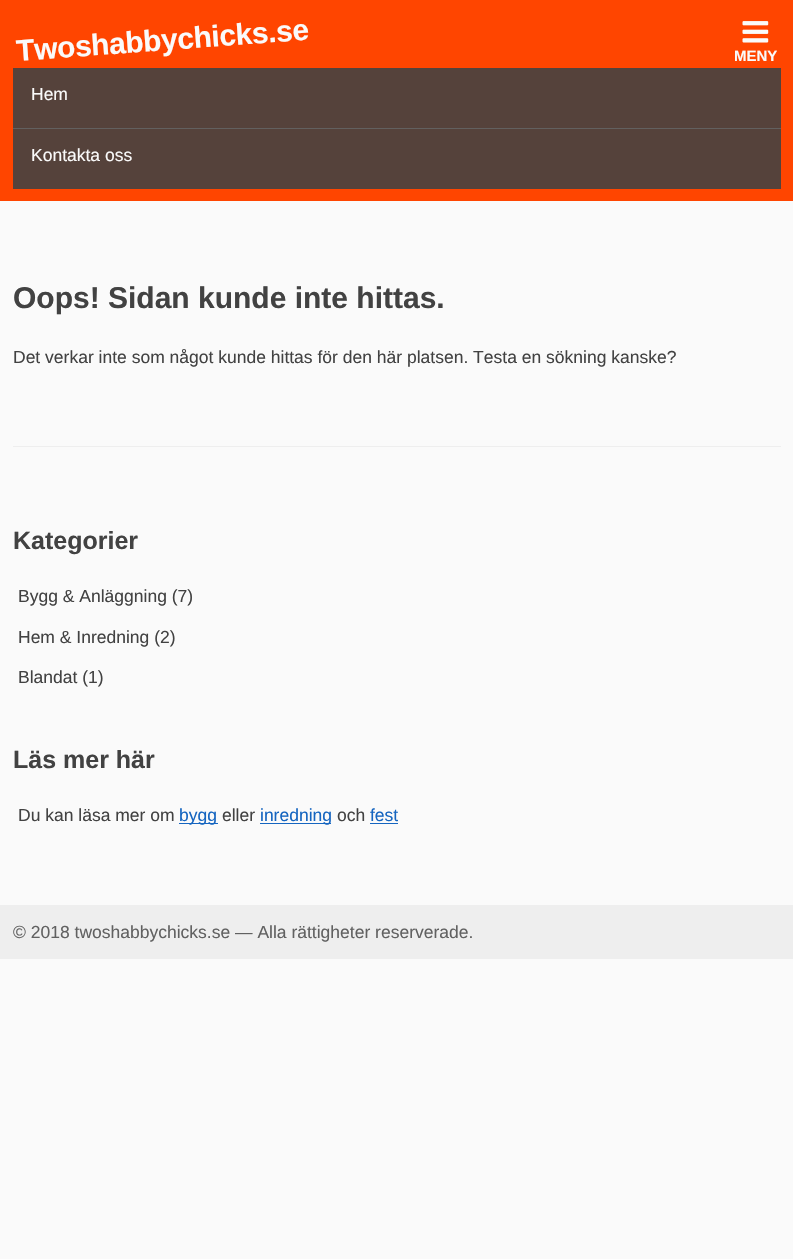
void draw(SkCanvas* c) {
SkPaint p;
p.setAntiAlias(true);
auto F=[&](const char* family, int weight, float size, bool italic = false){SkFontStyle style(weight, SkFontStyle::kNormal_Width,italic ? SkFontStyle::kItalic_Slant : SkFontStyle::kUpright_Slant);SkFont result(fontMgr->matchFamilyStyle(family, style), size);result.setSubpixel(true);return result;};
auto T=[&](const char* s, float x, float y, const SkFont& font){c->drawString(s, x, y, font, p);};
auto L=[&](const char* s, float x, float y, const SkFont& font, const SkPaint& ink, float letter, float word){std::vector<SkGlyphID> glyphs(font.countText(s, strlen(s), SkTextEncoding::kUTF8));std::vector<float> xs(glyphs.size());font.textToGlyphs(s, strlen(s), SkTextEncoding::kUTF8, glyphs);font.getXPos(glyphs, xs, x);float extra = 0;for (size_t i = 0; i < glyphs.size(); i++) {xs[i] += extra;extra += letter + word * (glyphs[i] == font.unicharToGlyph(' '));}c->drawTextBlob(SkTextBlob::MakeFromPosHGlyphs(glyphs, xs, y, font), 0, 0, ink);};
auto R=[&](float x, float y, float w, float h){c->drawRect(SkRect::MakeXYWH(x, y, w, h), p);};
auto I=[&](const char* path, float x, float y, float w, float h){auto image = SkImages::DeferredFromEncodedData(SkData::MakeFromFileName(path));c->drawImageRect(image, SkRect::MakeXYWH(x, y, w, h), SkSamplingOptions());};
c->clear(0xfffafafa);
p.setColor(0xffff4500);
R(0,0,793,201);
auto f1 = F("Liberation Sans",700,30);
p.setColor(0xfffafafa);
c->save();
c->rotate(-4.2,17,61);
L("Twoshabbychicks.se",17,61,f1,p,-.4,0);
c->restore();
I("1.png",742,21,27,22);
auto f2 = F("Liberation Sans",700,15);
T("MENY",734,61,f2);
p.setColor(0xff55423b);
R(13,68,768,121);
auto f3 = F("Liberation Sans",400,17.5);
p.setColor(0xfffafafa);
T("Hem",31,100,f3);
p.setColor(0xff62605f);
R(13,128,768,1);
p.setColor(0xfffafafa);
T("Kontakta oss",31,161,f3);
p.setColor(0xffeeeeee);
R(13,446,768,1);
p.setColor(0xff424242);
T("Oops! Sidan kunde inte hittas.",13,308,f1);
T("Det verkar inte som något kunde hittas för den här platsen. Testa en sökning kanske?",13,363,f3);
auto f4 = F("Liberation Sans",700,25);
T("Kategorier",13,549,f4);
T("Bygg & Anläggning (7)",18,602,f3);
T("Hem & Inredning (2)",18,643,f3);
T("Blandat (1)",18,683,f3);
T("Läs mer här",13,768,f4);
T("Du kan läsa mer om",18,821,f3);
p.setColor(0xff1565c0);
R(179,823,39,1);
T("bygg",179,821,f3);
p.setColor(0xff424242);
T("eller",222,821,f3);
p.setColor(0xff1565c0);
R(260,823,71,1);
T("inredning",260,821,f3);
p.setColor(0xff424242);
T("och",337,821,f3);
p.setColor(0xff1565c0);
T("fest",370,821,f3);
R(370,823,28,1);
p.setColor(0xffeeeeee);
R(0,905,793,54);
p.setColor(0xff616161);
T("© 2018 twoshabbychicks.se — Alla rättigheter reserverade.",13,938,f3);
}
